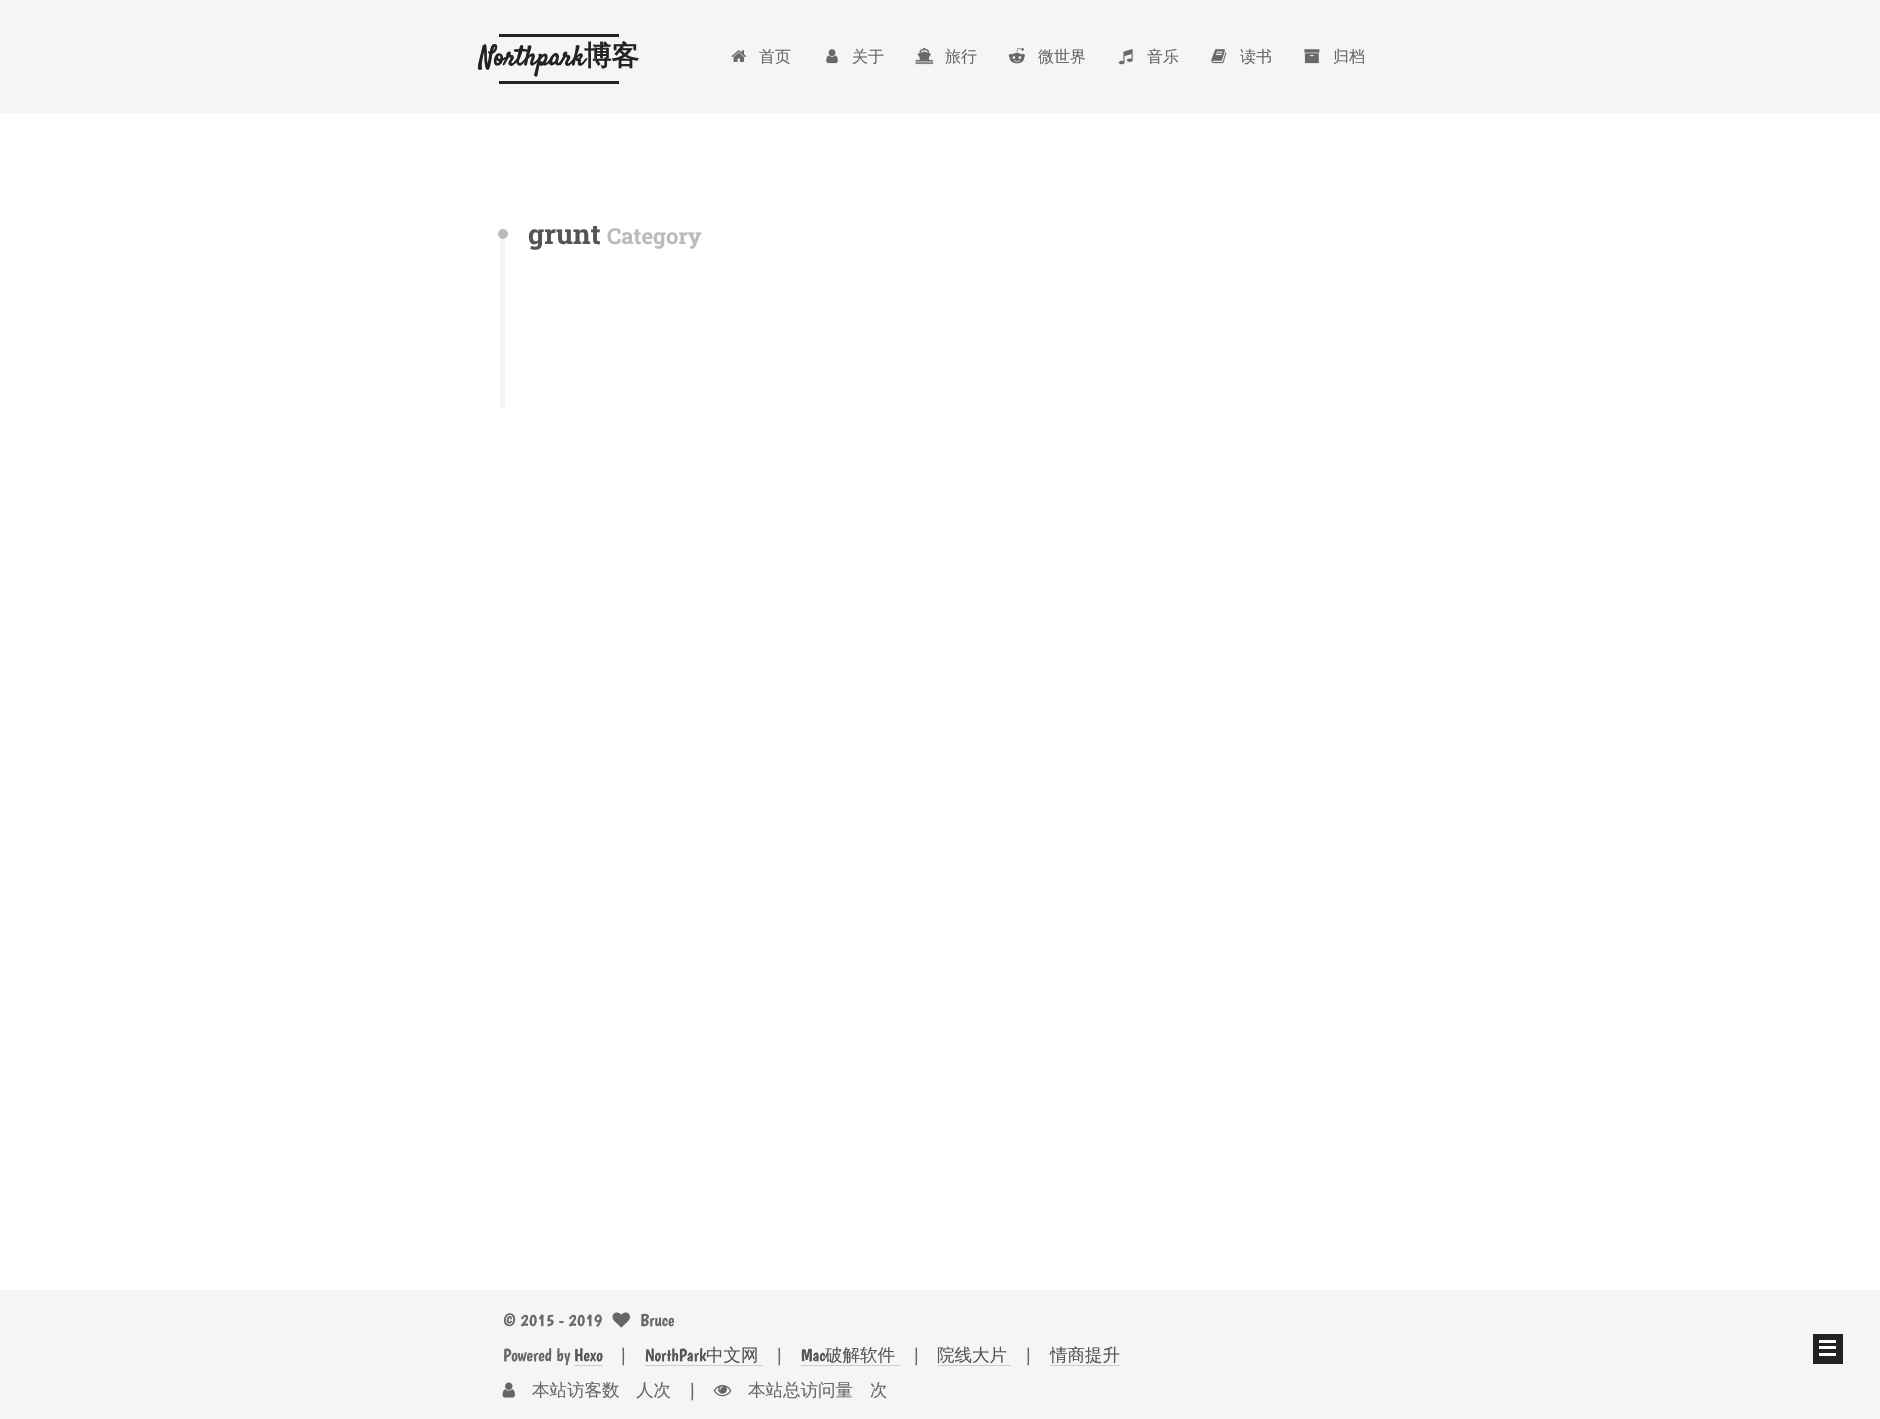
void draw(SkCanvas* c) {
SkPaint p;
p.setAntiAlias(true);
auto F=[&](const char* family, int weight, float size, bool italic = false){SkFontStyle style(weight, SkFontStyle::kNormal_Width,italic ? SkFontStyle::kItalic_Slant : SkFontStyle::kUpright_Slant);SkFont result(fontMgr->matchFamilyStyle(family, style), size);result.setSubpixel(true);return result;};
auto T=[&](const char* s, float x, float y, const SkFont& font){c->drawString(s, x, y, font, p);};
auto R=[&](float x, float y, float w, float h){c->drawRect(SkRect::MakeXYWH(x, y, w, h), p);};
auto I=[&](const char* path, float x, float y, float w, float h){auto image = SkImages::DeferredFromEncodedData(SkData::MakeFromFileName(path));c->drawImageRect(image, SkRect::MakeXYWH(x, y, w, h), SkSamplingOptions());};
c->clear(0xffffffff);
p.setColor(0xfff5f5f5);
R(0,0,1880,113);
p.setColor(0xff222222);
R(499,34,120,3);
auto f1 = F("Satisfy",700,27.5);
T("Northpark",479,65,f1);
auto f2 = F("WenQuanYi Zen Hei",700,27.5);
T("博客",584,65,f2);
R(499,81,120,3);
I("1.png",731,50,15,12);
auto f3 = F("WenQuanYi Zen Hei",500,16);
p.setColor(0xff686868);
T("首页",759,62,f3);
I("2.png",826,49,12,15);
T("关于",852,62,f3);
I("3.png",915,48,19,17);
T("旅行",945,62,f3);
I("4.png",1008,48,17,16);
T("微世界",1038,62,f3);
I("5.png",1118,49,15,16);
T("音乐",1147,62,f3);
I("6.png",1211,49,16,15);
T("读书",1240,62,f3);
I("7.png",1304,49,16,15);
T("归档",1333,62,f3);
p.setColor(0xfff5f5f5);
R(500,238,5,170);
p.setColor(0xffbbbbbb);
c->drawCircle(503,234,5,p);
auto f4 = F("Roboto Slab",700,27.5);
p.setColor(0xff555555);
T("grunt",528,244,f4);
auto f5 = F("Roboto Slab",700,22);
p.setColor(0xffbbbbbb);
T("Category",607,244,f5);
p.setColor(0xfff5f5f5);
R(0,1290,1880,129);
p.setColor(0xff222222);
R(1813,1334,30,30);
p.setColor(0xffffffff);
R(1819,1340,17,3);
R(1819,1346,17,3);
R(1819,1353,17,3);
auto f6 = F("Boogaloo",400,17.5);
p.setColor(0xff686868);
T("© 2015 - 2019",503,1326,f6);
I("8.png",612,1312,18,16);
T("Bruce",640,1326,f6);
T("Powered by",503,1361,f6);
p.setColor(0xff555555);
T("Hexo",574,1361,f6);
p.setColor(0xffcccccc);
R(574,1365,29,1);
p.setColor(0xff686868);
T("|",619,1361,f6);
p.setColor(0xff555555);
T("NorthPark",645,1361,f6);
p.setColor(0xffcccccc);
R(645,1365,118,1);
auto f7 = F("WenQuanYi Zen Hei",500,17.5);
p.setColor(0xff555555);
T("中文网",706,1361,f7);
p.setColor(0xff686868);
T("|",775,1361,f6);
p.setColor(0xff555555);
T("Mac",801,1361,f6);
p.setColor(0xffcccccc);
R(801,1365,99,1);
p.setColor(0xff555555);
T("破解软件",825,1361,f7);
p.setColor(0xff686868);
T("|",912,1361,f6);
p.setColor(0xff555555);
T("院线大片",937,1361,f7);
p.setColor(0xffcccccc);
R(938,1365,73,1);
p.setColor(0xff686868);
T("|",1024,1361,f6);
p.setColor(0xff555555);
T("情商提升",1050,1361,f7);
p.setColor(0xffcccccc);
R(1050,1365,70,1);
I("9.png",502,1382,13,16);
p.setColor(0xff686868);
T("本站访客数",532,1396,f7);
T("人次",636,1396,f7);
T("|",688,1396,f6);
I("10.png",713,1385,19,12);
T("本站总访问量",748,1396,f7);
T("次",870,1396,f7);
}
